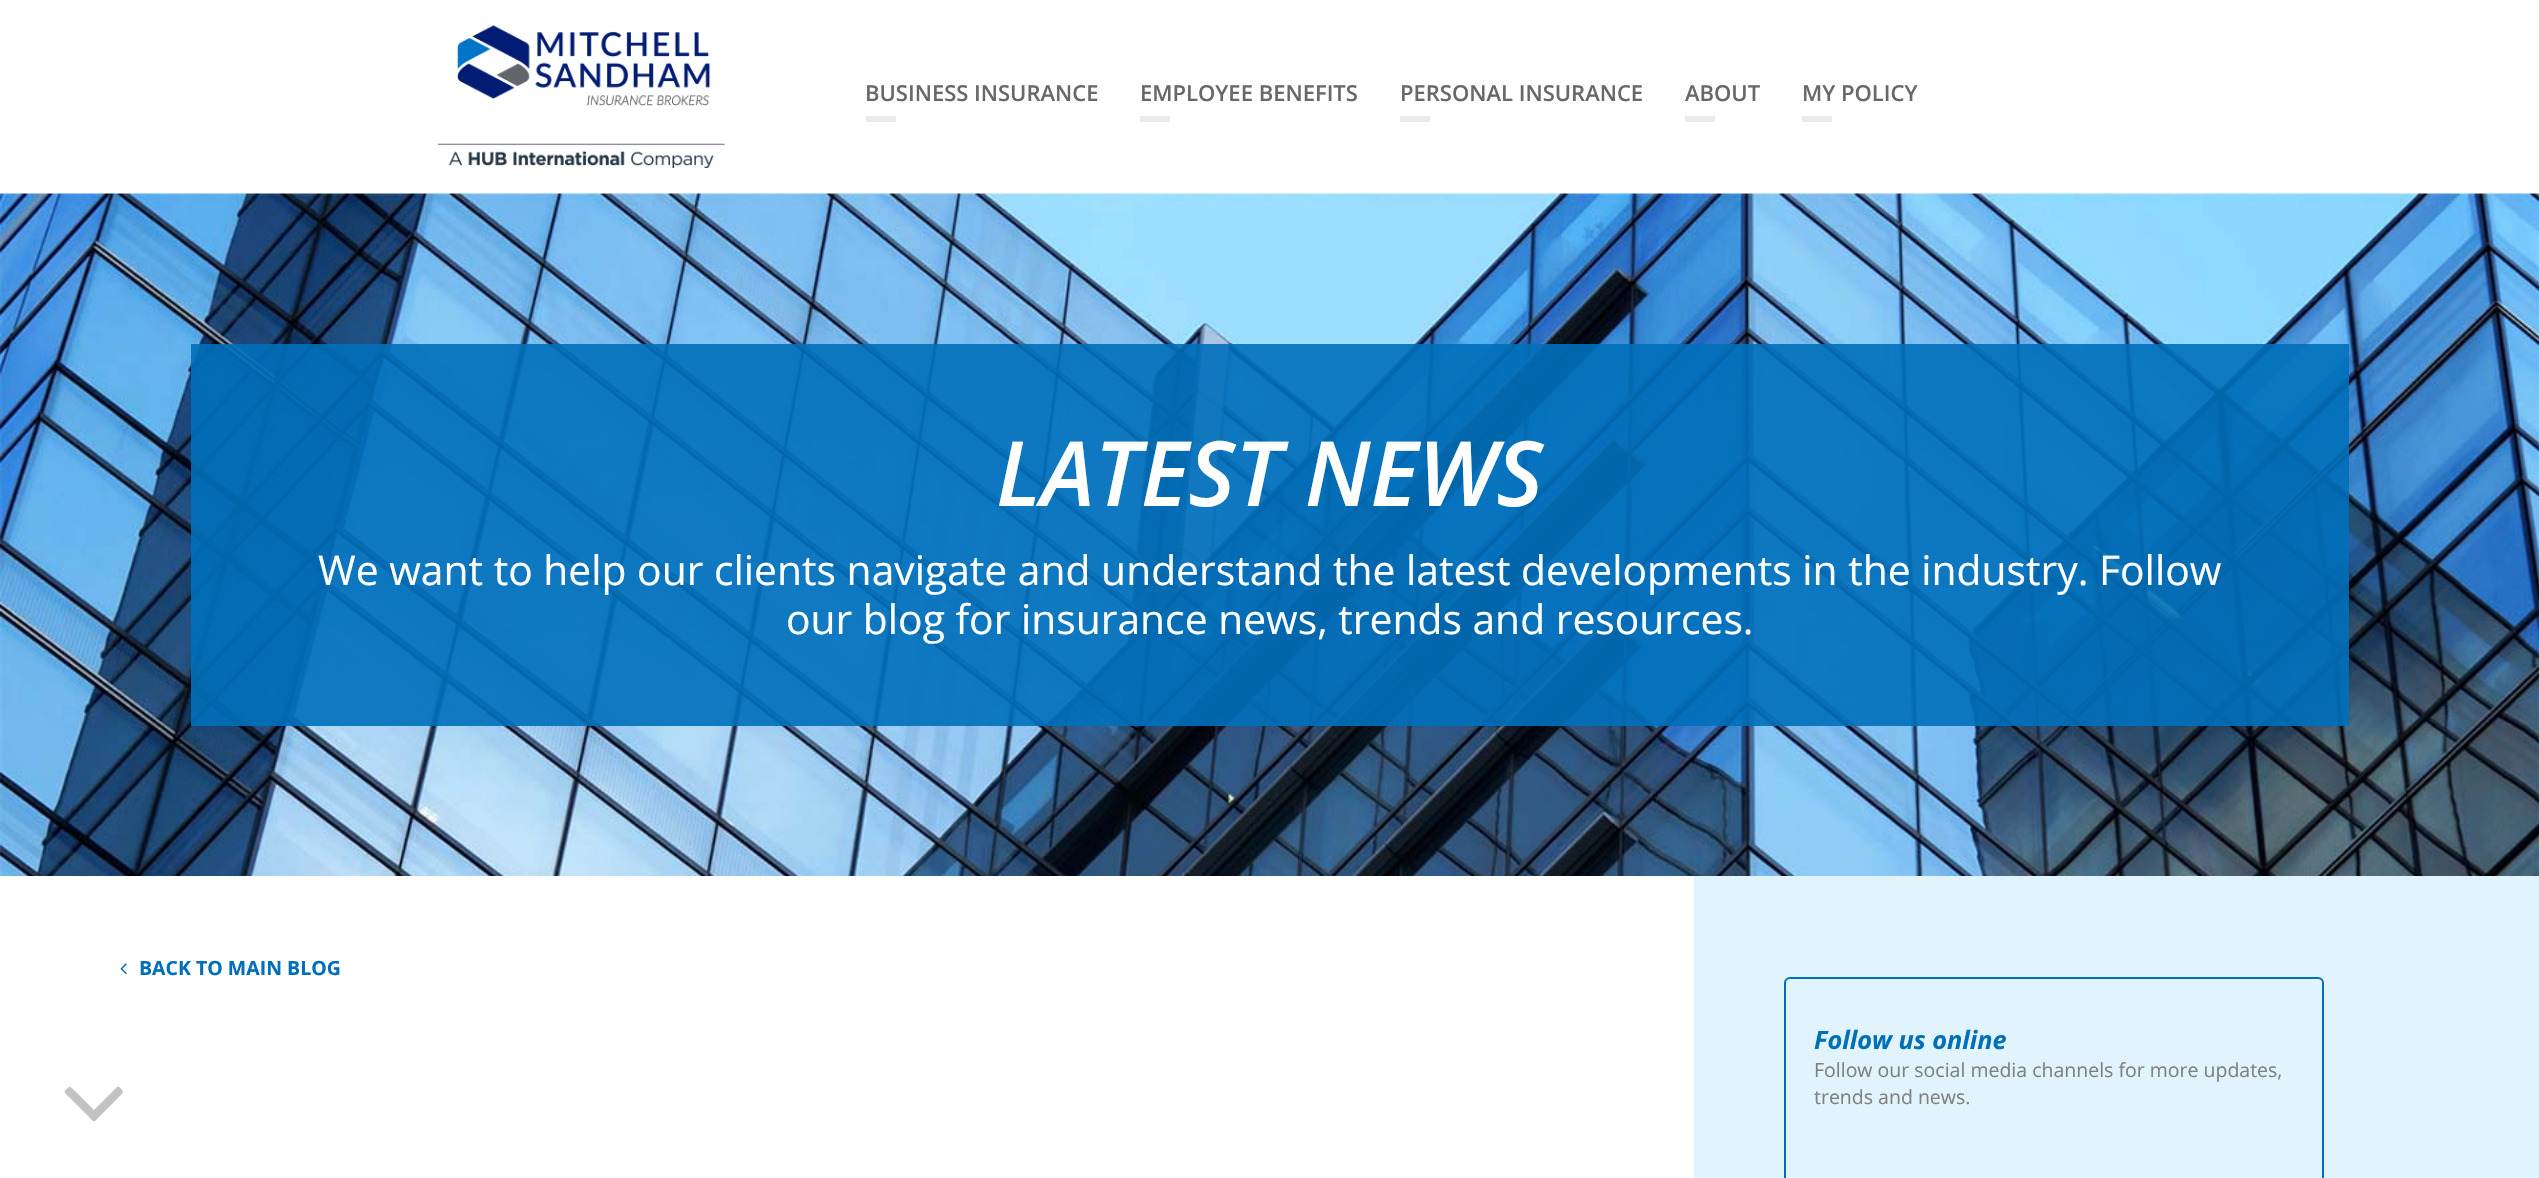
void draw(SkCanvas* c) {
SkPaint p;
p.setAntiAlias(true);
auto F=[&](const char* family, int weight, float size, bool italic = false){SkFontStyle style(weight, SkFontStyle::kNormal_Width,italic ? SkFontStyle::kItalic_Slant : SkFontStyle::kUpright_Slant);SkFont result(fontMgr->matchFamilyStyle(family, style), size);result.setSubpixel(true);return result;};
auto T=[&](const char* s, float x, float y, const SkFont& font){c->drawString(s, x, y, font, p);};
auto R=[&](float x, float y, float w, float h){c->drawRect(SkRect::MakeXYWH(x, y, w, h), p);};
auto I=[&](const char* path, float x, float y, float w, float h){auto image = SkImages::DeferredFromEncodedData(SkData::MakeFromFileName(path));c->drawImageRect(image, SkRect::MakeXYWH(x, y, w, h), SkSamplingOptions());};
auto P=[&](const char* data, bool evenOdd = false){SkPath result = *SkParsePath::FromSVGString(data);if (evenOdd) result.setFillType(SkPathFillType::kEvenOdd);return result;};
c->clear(0xffffffff);
I("1.png",438,25,287,143);
auto f1 = F("Open Sans",600,22);
p.setColor(0xff67686a);
T("BUSINESS INSURANCE",865,101,f1);
p.setColor(0xffebebeb);
R(866,116,30,6);
p.setColor(0xff67686a);
T("EMPLOYEE BENEFITS",1140,101,f1);
p.setColor(0xffebebeb);
R(1140,116,30,6);
p.setColor(0xff67686a);
T("PERSONAL INSURANCE",1400,101,f1);
p.setColor(0xffebebeb);
R(1400,116,30,6);
p.setColor(0xff67686a);
T("ABOUT",1685,101,f1);
p.setColor(0xffebebeb);
R(1685,116,30,6);
p.setColor(0xff67686a);
T("MY POLICY",1802,101,f1);
p.setColor(0xffebebeb);
R(1802,116,30,6);
I("2.png",0,193,2539,683);
p.setColor(0xe6006fba);
R(191,344,2158,382);
auto f2 = F("Open Sans",600,90,true);
p.setColor(0xffffffff);
T("LATEST NEWS",996,506,f2);
auto f3 = F("Open Sans",400,40.8);
T("We want to help our clients navigate and understand the latest developments in the industry. Follow",318,585,f3);
T("our blog for insurance news, trends and resources.",786,634,f3);
I("3.png",120,963,7,12);
auto f4 = F("Open Sans",700,19.5);
p.setColor(0xff006fba);
T("BACK TO MAIN BLOG",139,975,f4);
p.setColor(0xffc2c2c2);
c->drawPath(P("M122 1090c3 3-4 7-4 8l-18 18c-7 7-5 7-12 0l-23-23c-1-2 0-3 2-4c3-4 3-2 8 2l19 19l23-23c2-2 4 2 5 3z"),p);
p.setColor(0xffe1f4fd);
R(1694,876,845,302);
p.setStroke(true);
p.setStrokeWidth(2);
p.setColor(0xff006fba);
c->drawRoundRect(SkRect::MakeXYWH(1785,978,538,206),5,5,p);
auto f5 = F("Open Sans",700,25.25,true);
p.setStroke(false);
T("Follow us online",1814,1049,f5);
auto f6 = F("Open Sans",400,19.5);
p.setColor(0xff808080);
T("Follow our social media channels for more updates,",1814,1077,f6);
T("trends and news.",1814,1104,f6);
}
